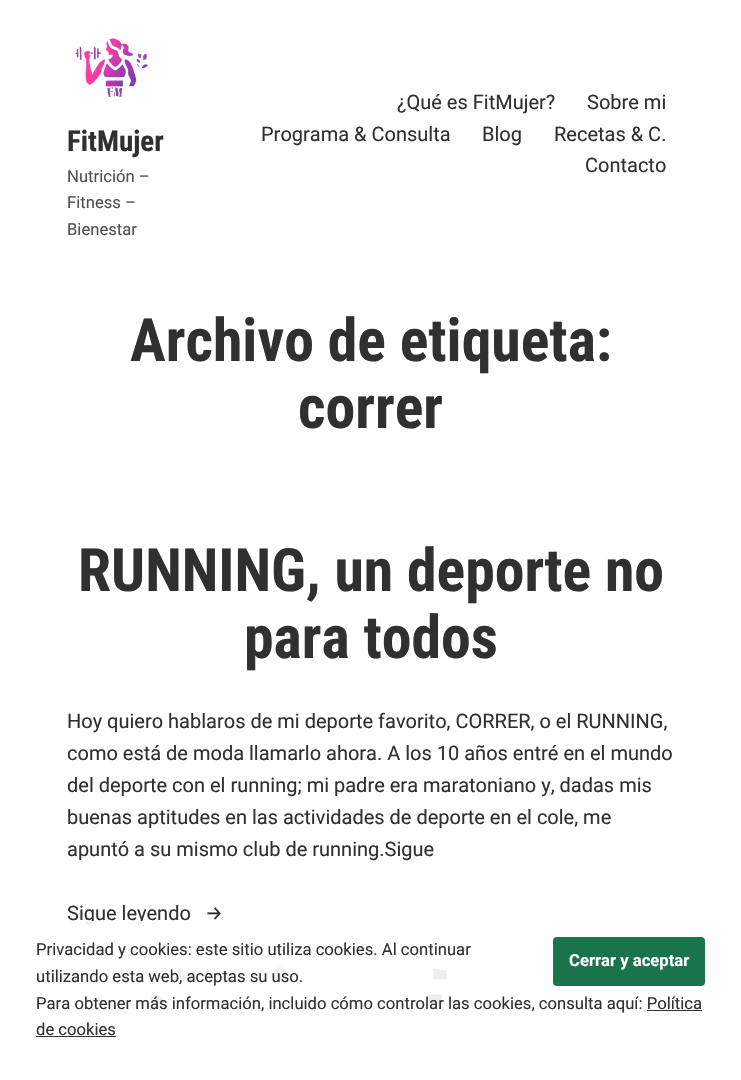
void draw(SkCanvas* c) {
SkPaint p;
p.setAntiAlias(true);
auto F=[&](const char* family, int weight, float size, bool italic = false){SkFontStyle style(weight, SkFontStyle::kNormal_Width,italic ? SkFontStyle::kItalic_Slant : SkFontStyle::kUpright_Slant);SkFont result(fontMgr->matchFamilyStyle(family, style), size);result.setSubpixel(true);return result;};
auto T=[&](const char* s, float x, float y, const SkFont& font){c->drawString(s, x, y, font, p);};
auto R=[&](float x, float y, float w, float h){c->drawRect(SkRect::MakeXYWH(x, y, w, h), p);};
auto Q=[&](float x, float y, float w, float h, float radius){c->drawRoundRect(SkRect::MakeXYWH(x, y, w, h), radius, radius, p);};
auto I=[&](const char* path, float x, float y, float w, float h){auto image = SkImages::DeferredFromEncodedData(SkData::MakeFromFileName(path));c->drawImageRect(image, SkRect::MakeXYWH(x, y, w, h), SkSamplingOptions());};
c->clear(0xffffffff);
I("1.png",75,38,73,59);
auto f1 = F("Roboto Condensed",700,29);
p.setColor(0xff303030);
T("FitMujer",67,151,f1);
auto f2 = F("Roboto",400,16.65);
p.setColor(0xff505050);
T("Nutrición –",67,182,f2);
T("Fitness –",67,208,f2);
T("Bienestar",67,235,f2);
auto f3 = F("Roboto",400,20);
p.setColor(0xff303030);
T("¿Qué es FitMujer?",397,109,f3);
T("Sobre mi",587,109,f3);
T("Programa & Consulta",261,141,f3);
T("Blog",482,141,f3);
T("Recetas & C.",554,141,f3);
T("Contacto",585,172,f3);
auto f4 = F("Roboto Condensed",700,59.75);
T("Archivo de etiqueta:",130,361,f4);
T("correr",298,428,f4);
T("RUNNING, un deporte no",78,591,f4);
T("para todos",244,658,f4);
T("Hoy quiero hablaros de mi deporte favorito, CORRER, o el RUNNING,",67,728,f3);
T("como está de moda llamarlo ahora. A los 10 años entré en el mundo",67,760,f3);
T("del deporte con el running; mi padre era maratoniano y, dadas mis",67,792,f3);
T("buenas aptitudes en las actividades de deporte en el cole, me",67,824,f3);
T("apuntó a su mismo club de running.Sigue",67,856,f3);
T("Sigue leyendo",67,920,f3);
auto f5 = F("Fira Sans",400,20);
T("→",205,920,f5);
I("2.png",174,968,12,12);
I("3.png",273,967,14,14);
I("4.png",433,968,14,12);
I("5.png",151,994,14,14);
I("6.png",428,994,14,14);
p.setColor(0xe6ffffff);
R(84,921,363,87);
p.setColor(0xff303030);
T("Privacidad y cookies: este sitio utiliza cookies. Al continuar",36,955,f2);
p.setColor(0xff19744c);
Q(553,937,152,49,4);
auto f6 = F("Roboto",700,16.65);
p.setColor(0xffffffff);
T("Cerrar y aceptar",569,966,f6);
p.setColor(0xff303030);
T("utilizando esta web, aceptas su uso.",36,982,f2);
T("Para obtener más información, incluido cómo controlar las cookies, consulta aquí: Política",36,1009,f2);
T("de cookies",36,1035,f2);
R(647,1010,55,1);
R(36,1036,80,1);
}
